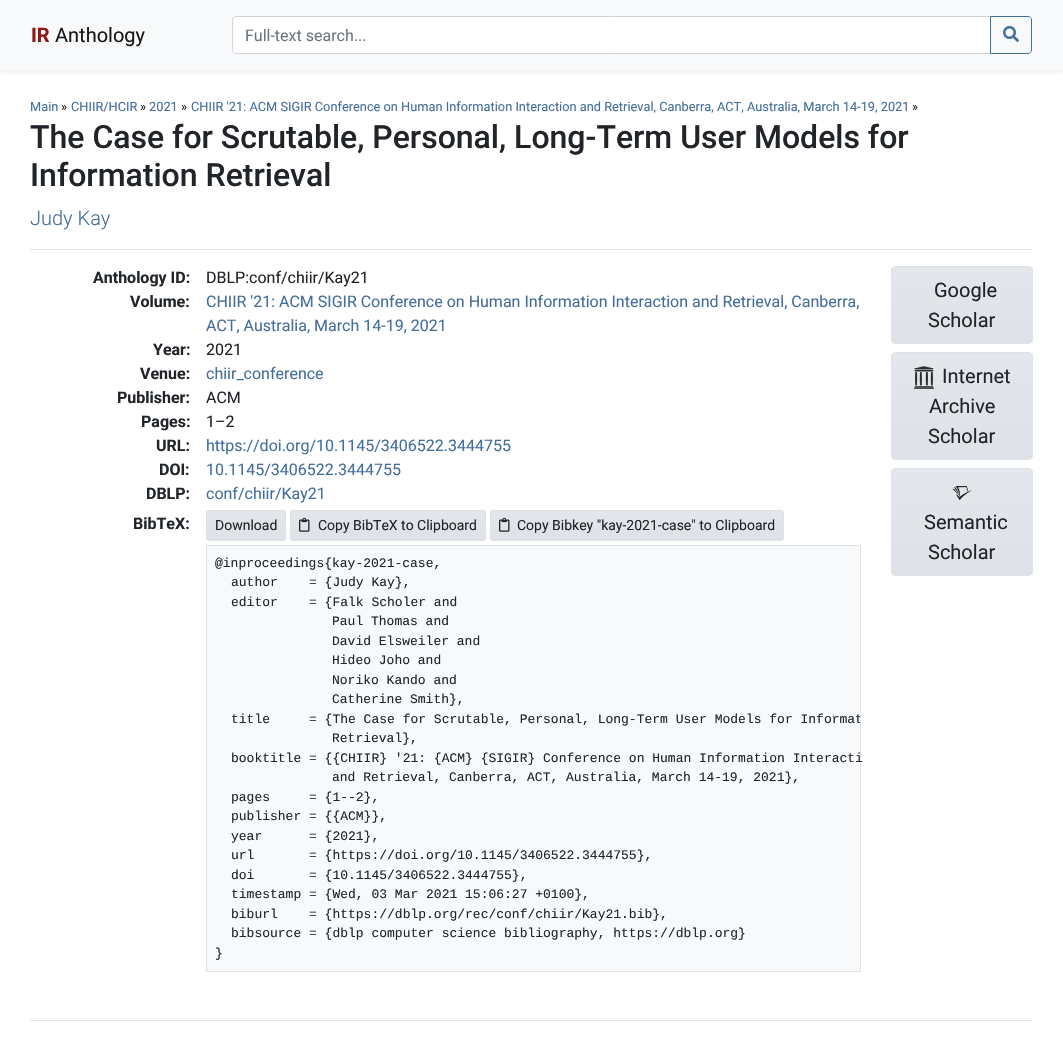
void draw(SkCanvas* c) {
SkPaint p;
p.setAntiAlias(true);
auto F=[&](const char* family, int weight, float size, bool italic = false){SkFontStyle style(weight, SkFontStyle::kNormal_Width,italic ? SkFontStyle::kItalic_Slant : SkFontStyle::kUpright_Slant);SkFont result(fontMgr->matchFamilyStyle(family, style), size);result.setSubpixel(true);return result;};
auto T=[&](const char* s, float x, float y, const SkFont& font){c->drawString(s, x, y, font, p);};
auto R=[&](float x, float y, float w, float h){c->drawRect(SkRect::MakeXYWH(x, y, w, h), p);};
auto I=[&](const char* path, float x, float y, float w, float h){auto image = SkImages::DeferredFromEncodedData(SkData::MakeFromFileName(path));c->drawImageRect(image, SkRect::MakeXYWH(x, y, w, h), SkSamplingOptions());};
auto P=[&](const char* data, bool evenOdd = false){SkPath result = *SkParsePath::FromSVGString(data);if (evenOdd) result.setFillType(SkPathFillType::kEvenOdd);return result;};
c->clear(0xffffffff);
p.setColor(0x12000000);
p.setMaskFilter(SkMaskFilter::MakeBlur(kNormal_SkBlurStyle, 2));
c->drawRect(SkRect::MakeXYWH(0,2,1063,70),p);
p.setMaskFilter(nullptr);
p.setColor(0xfff8f9fa);
R(0,0,1063,70);
auto f1 = F("Roboto",700,20);
p.setColor(0xff951515);
T("IR",31,42,f1);
auto f2 = F("Roboto",400,20);
p.setColor(0xff191919);
T("Anthology",55,42,f2);
p.setColor(0xffffffff);
c->drawPath(P("M236 16.5h754.5v37h-754.5c-2 0-3.5-1.5-3.5-3.5v-30c0-2 1.5-3.5 3.5-3.5z"),p);
p.setStroke(true);
p.setStrokeWidth(1);
p.setColor(0xffced4da);
c->drawPath(P("M236 16.5h754.5v37h-754.5c-2 0-3.5-1.5-3.5-3.5v-30c0-2 1.5-3.5 3.5-3.5z"),p);
auto f3 = F("Roboto",400,16);
p.setStroke(false);
p.setColor(0xff6c757d);
T("Full-text search...",245,41,f3);
p.setStroke(true);
p.setColor(0xff446e9b);
c->drawPath(P("M990.5 16.5h37.5c2 0 3.5 1.5 3.5 3.5v30c0 2-1.5 3.5-3.5 3.5h-37.5z"),p);
I("1.png",1003,26,16,16);
auto f4 = F("Roboto",400,12.8);
p.setStroke(false);
T("Main",30,111,f4);
p.setColor(0xff212529);
T("»",61,111,f4);
p.setColor(0xff446e9b);
T("CHIIR/HCIR",71,111,f4);
p.setColor(0xff212529);
T("»",140,111,f4);
p.setColor(0xff446e9b);
T("2021",149,111,f4);
p.setColor(0xff212529);
T("»",181,111,f4);
p.setColor(0xff446e9b);
T("CHIIR '21: ACM SIGIR Conference on Human Information Interaction and Retrieval, Canberra, ACT, Australia, March 14-19, 2021",191,111,f4);
p.setColor(0xff212529);
T("»",912,111,f4);
auto f5 = F("Roboto",500,32);
T("The Case for Scrutable, Personal, Long-Term User Models for",30,148,f5);
T("Information Retrieval",30,186,f5);
auto f6 = F("Roboto",300,20);
p.setColor(0xff446e9b);
T("Judy Kay",30,225,f6);
p.setColor(0xffe6e6e6);
R(30,249,1003,1);
auto f7 = F("Roboto",700,16);
p.setColor(0xff212529);
T("Anthology ID:",93,283,f7);
T("DBLP:conf/chiir/Kay21",206,283,f3);
T("Volume:",130,307,f7);
p.setColor(0xff446e9b);
T("CHIIR '21: ACM SIGIR Conference on Human Information Interaction and Retrieval, Canberra,",206,307,f3);
T("ACT, Australia, March 14-19, 2021",206,331,f3);
p.setColor(0xff212529);
T("Year:",153,355,f7);
T("2021",206,355,f3);
T("Venue:",140,379,f7);
p.setColor(0xff446e9b);
T("chiir_conference",206,379,f3);
p.setColor(0xff212529);
T("Publisher:",117,403,f7);
T("ACM",206,403,f3);
T("Pages:",141,427,f7);
T("1–2",206,427,f3);
T("URL:",156,451,f7);
p.setColor(0xff446e9b);
T("https://doi.org/10.1145/3406522.3444755",206,451,f3);
p.setColor(0xff212529);
T("DOI:",159,475,f7);
p.setColor(0xff446e9b);
T("10.1145/3406522.3444755",206,475,f3);
p.setColor(0xff212529);
T("DBLP:",146,499,f7);
p.setColor(0xff446e9b);
T("conf/chiir/Kay21",206,499,f3);
p.setColor(0xff212529);
T("BibTeX:",133,529,f7);
c->save();
c->clipPath(P("M209 510h74c1.5 0 3 1.5 3 3v25c0 1.5-1.5 3-3 3h-74c-1.5 0-3-1.5-3-3v-25c0-1.5 1.5-3 3-3z"),true);
{
const SkColor colors[] = {0xffe3e6ea,0xffdee2e6};
const float stops[] = {0,1};
const SkPoint ends[] = {{246,511}, {246,540}};
p.setShader(SkGradientShader::MakeLinear(ends, colors, stops, 2, SkTileMode::kClamp));
p.setAlpha(255);
}
R(206,511,80,29);
c->restore();
p.setStroke(true);
p.setShader(nullptr);
p.setColor(0xffdee2e6);
c->drawRoundRect(SkRect::MakeXYWH(206.5,510.5,79,30),2.5,2.5,p);
auto f8 = F("Roboto",400,14);
p.setStroke(false);
p.setColor(0xff212529);
T("Download",215,530,f8);
c->save();
c->clipPath(P("M293 510h190c1.5 0 3 1.5 3 3v25c0 1.5-1.5 3-3 3h-190c-1.5 0-3-1.5-3-3v-25c0-1.5 1.5-3 3-3z"),true);
{
const SkColor colors[] = {0xffe3e6ea,0xffdee2e6};
const float stops[] = {0,1};
const SkPoint ends[] = {{388,511}, {388,540}};
p.setShader(SkGradientShader::MakeLinear(ends, colors, stops, 2, SkTileMode::kClamp));
p.setAlpha(255);
}
R(290,511,196,29);
c->restore();
p.setStroke(true);
p.setShader(nullptr);
p.setColor(0xffdee2e6);
c->drawRoundRect(SkRect::MakeXYWH(290.5,510.5,195,30),2.5,2.5,p);
I("2.png",299,517,11,15);
p.setStroke(false);
p.setColor(0xff212529);
T("Copy BibTeX to Clipboard",318,530,f8);
c->save();
c->clipPath(P("M493 510h288c1.5 0 3 1.5 3 3v25c0 1.5-1.5 3-3 3h-288c-1.5 0-3-1.5-3-3v-25c0-1.5 1.5-3 3-3z"),true);
{
const SkColor colors[] = {0xffe3e6ea,0xffdee2e6};
const float stops[] = {0,1};
const SkPoint ends[] = {{637,511}, {637,540}};
p.setShader(SkGradientShader::MakeLinear(ends, colors, stops, 2, SkTileMode::kClamp));
p.setAlpha(255);
}
R(490,511,294,29);
c->restore();
p.setStroke(true);
p.setShader(nullptr);
p.setColor(0xffdee2e6);
c->drawRoundRect(SkRect::MakeXYWH(490.5,510.5,293,30),2.5,2.5,p);
I("2.png",499,517,11,15);
p.setStroke(false);
p.setColor(0xff212529);
T("Copy Bibkey \"kay-2021-case\" to Clipboard",517,530,f8);
p.setColor(0xfff8f9fa);
c->drawRect(SkRect::MakeXYWH(206.5,545.5,654,426),p);
p.setStroke(true);
p.setColor(0xffdee2e6);
c->drawRect(SkRect::MakeXYWH(206.5,545.5,654,426),p);
auto f9 = F("Liberation Mono",400,13);
p.setStroke(false);
p.setColor(0xff212529);
T("@inproceedings{kay-2021-case,",215,567,f9);
T("author    = {Judy Kay},",231,586,f9);
T("editor    = {Falk Scholer and",231,606,f9);
T("Paul Thomas and",332,625,f9);
T("David Elsweiler and",332,645,f9);
T("Hideo Joho and",332,664,f9);
T("Noriko Kando and",332,684,f9);
T("Catherine Smith},",332,703,f9);
c->save();
c->clipRect(SkRect::MakeXYWH(207,546,653,425));
T("title     = {The Case for Scrutable, Personal, Long-Term User Models for Informat",231,723,f9);
c->restore();
T("Retrieval},",332,742,f9);
T("booktitle = {{CHIIR} '21: {ACM} {SIGIR} Conference on Human Information Interacti",231,762,f9);
T("and Retrieval, Canberra, ACT, Australia, March 14-19, 2021},",332,781,f9);
T("pages     = {1--2},",231,801,f9);
T("publisher = {{ACM}},",231,820,f9);
T("year      = {2021},",231,840,f9);
T("url       = {https://doi.org/10.1145/3406522.3444755},",231,859,f9);
T("doi       = {10.1145/3406522.3444755},",231,879,f9);
T("timestamp = {Wed, 03 Mar 2021 15:06:27 +0100},",231,898,f9);
T("biburl    = {https://dblp.org/rec/conf/chiir/Kay21.bib},",231,918,f9);
T("bibsource = {dblp computer science bibliography, https://dblp.org}",231,937,f9);
T("}",215,957,f9);
c->save();
c->clipPath(P("M896 266h132c3 0 5 2 5 5v68c0 3-2 5-5 5h-132c-3 0-5-2-5-5v-68c0-3 2-5 5-5z"),true);
{
const SkColor colors[] = {0xffe3e6ea,0xffdee2e6};
const float stops[] = {0,1};
const SkPoint ends[] = {{962,267}, {962,343}};
p.setShader(SkGradientShader::MakeLinear(ends, colors, stops, 2, SkTileMode::kClamp));
p.setAlpha(255);
}
R(891,267,142,76);
c->restore();
p.setStroke(true);
p.setShader(nullptr);
p.setColor(0xffdee2e6);
c->drawRoundRect(SkRect::MakeXYWH(891.5,266.5,141,77),4.5,4.5,p);
p.setStroke(false);
p.setColor(0xff212529);
T("Google",934,297,f2);
T("Scholar",928,327,f2);
c->save();
c->clipPath(P("M896 352h132c3 0 5 2 5 5v98c0 3-2 5-5 5h-132c-3 0-5-2-5-5v-98c0-3 2-5 5-5z"),true);
{
const SkColor colors[] = {0xffe3e6ea,0xffdee2e6};
const float stops[] = {0,1};
const SkPoint ends[] = {{962,353}, {962,459}};
p.setShader(SkGradientShader::MakeLinear(ends, colors, stops, 2, SkTileMode::kClamp));
p.setAlpha(255);
}
R(891,353,142,106);
c->restore();
p.setStroke(true);
p.setShader(nullptr);
p.setColor(0xffdee2e6);
c->drawRoundRect(SkRect::MakeXYWH(891.5,352.5,141,107),4.5,4.5,p);
I("3.png",914,366,20,23);
p.setStroke(false);
p.setColor(0xff212529);
T("Internet",942,383,f2);
T("Archive",929,413,f2);
T("Scholar",928,443,f2);
c->save();
c->clipPath(P("M896 468h132c3 0 5 2 5 5v98c0 3-2 5-5 5h-132c-3 0-5-2-5-5v-98c0-3 2-5 5-5z"),true);
{
const SkColor colors[] = {0xffe3e6ea,0xffdee2e6};
const float stops[] = {0,1};
const SkPoint ends[] = {{962,469}, {962,575}};
p.setShader(SkGradientShader::MakeLinear(ends, colors, stops, 2, SkTileMode::kClamp));
p.setAlpha(255);
}
R(891,469,142,106);
c->restore();
p.setStroke(true);
p.setShader(nullptr);
p.setColor(0xffdee2e6);
c->drawRoundRect(SkRect::MakeXYWH(891.5,468.5,141,107),4.5,4.5,p);
I("4.png",952,486,20,14);
p.setStroke(false);
p.setColor(0xff212529);
T("Semantic",924,529,f2);
T("Scholar",928,559,f2);
p.setColor(0xffe6e6e6);
R(30,1020,1003,1);
}
